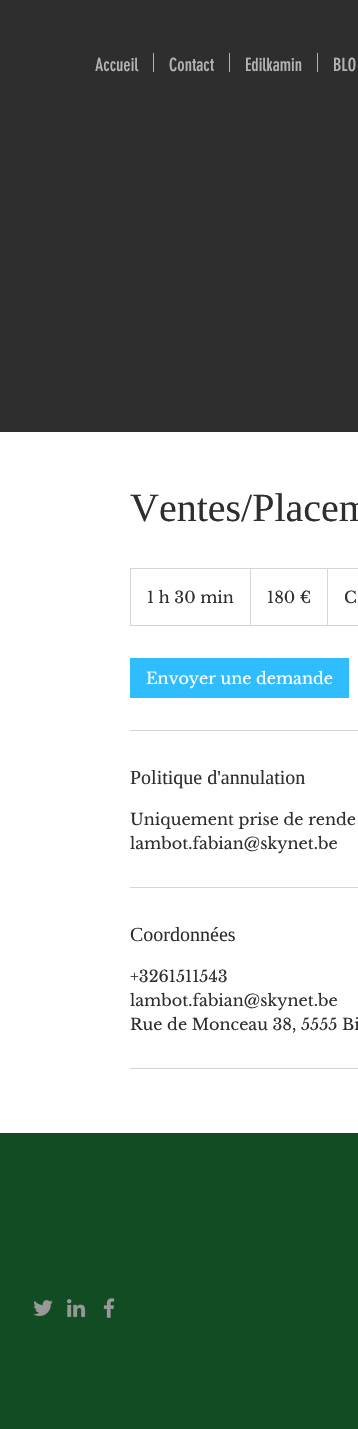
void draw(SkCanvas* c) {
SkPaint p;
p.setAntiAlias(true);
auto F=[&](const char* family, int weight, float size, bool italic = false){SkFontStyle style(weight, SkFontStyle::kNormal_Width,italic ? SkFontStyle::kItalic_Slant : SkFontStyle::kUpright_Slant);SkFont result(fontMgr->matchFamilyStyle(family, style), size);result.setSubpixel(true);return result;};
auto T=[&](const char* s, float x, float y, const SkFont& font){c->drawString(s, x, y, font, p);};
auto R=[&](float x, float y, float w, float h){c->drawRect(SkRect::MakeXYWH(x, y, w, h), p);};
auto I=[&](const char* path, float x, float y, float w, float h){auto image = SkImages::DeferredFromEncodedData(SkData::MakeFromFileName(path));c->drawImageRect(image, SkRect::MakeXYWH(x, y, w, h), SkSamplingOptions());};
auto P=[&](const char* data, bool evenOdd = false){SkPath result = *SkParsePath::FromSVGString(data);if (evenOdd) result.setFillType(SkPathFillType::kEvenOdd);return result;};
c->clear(0xff114c22);
p.setColor(0xff2f2e2e);
R(0,0,358,432);
auto f1 = F("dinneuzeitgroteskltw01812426",400,18);
p.setColor(0xffb3b3b3);
T("Accueil",95,71,f1);
R(153,53,1,19);
T("Contact",169,71,f1);
R(229,53,1,19);
T("Edilkamin",245,71,f1);
R(317,53,1,19);
T("BLO",333,71,f1);
p.setColor(0xffffffff);
R(0,432,358,701);
auto f2 = F("Liberation Serif",400,40);
p.setColor(0xff2f2e2e);
T("Ventes/Placem",130,521,f2);
p.setStroke(true);
p.setStrokeWidth(1);
p.setColor(0xffd5d5d5);
c->drawRect(SkRect::MakeXYWH(130.5,568.5,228,57),p);
auto f3 = F("Libre Baskerville",400,16);
p.setStroke(false);
p.setColor(0xff2f2e2e);
T("1 h 30 min",147,603,f3);
p.setColor(0xffd5d5d5);
c->drawPath(P("M250 625v-57l1 1v56z"),p);
p.setColor(0xff2f2e2e);
T("180 €",267,603,f3);
p.setColor(0xffd5d5d5);
c->drawPath(P("M327 625v-57l1 1v56z"),p);
p.setColor(0xff2f2e2e);
T("C",344,603,f3);
p.setColor(0xff30bdff);
R(130,658,219,40);
p.setColor(0xffffffff);
T("Envoyer une demande",146,684,f3);
p.setColor(0xffd5d5d5);
R(130,730,228,1);
auto f4 = F("Liberation Serif",400,20);
p.setColor(0xff2f2e2e);
T("Politique d'annulation",130,784,f4);
T("Uniquement prise de rende",130,825,f3);
T("lambot.fabian@skynet.be",130,849,f3);
p.setColor(0xffd5d5d5);
R(130,887,228,1);
p.setColor(0xff2f2e2e);
T("Coordonnées",130,941,f4);
T("+3261511543",130,982,f3);
T("lambot.fabian@skynet.be",130,1006,f3);
T("Rue de Monceau 38, 5555 Bi",130,1030,f3);
p.setColor(0xffd5d5d5);
R(130,1068,228,1);
I("1.png",33,1300,20,17);
I("2.png",66,1299,20,19);
I("3.png",103,1298,12,20);
}
